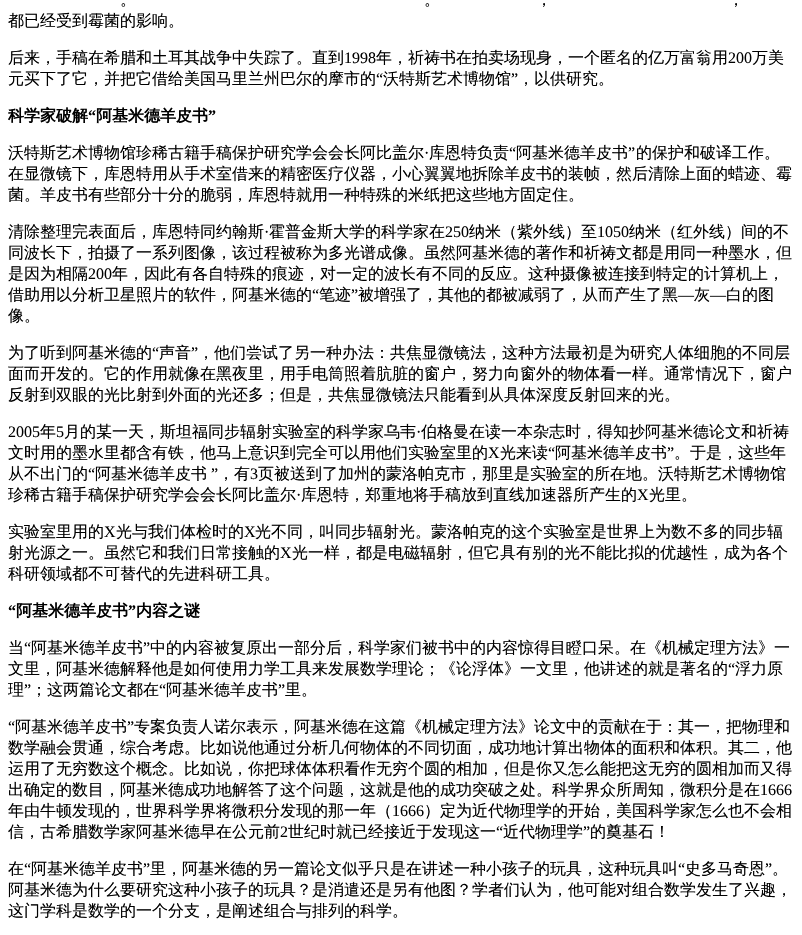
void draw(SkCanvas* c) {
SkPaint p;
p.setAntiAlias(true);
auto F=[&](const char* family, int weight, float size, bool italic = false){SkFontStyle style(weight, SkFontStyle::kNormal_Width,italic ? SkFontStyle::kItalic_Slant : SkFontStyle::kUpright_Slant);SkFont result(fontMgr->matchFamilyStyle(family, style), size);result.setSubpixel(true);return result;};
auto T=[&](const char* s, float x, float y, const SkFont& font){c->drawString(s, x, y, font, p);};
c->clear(0xffffffff);
auto f1 = F("WenQuanYi Zen Hei",500,16);
p.setColor(0xff000000);
T("。",120,5,f1);
T("。",424,5,f1);
T("，",536,5,f1);
T("，",728,5,f1);
T("都已经受到霉菌的影响。",8,26,f1);
T("后来，手稿在希腊和土耳其战争中失踪了。直到",8,63,f1);
auto f2 = F("Liberation Serif",400,16);
T("1998",344,63,f2);
T("年，祈祷书在拍卖场现身，一个匿名的亿万富翁用",376,63,f1);
T("200",728,63,f2);
T("万美",752,63,f1);
T("元买下了它，并把它借给美国马里兰州巴尔的摩市的",8,84,f1);
T("“",376,84,f2);
T("沃特斯艺术博物馆",383,84,f1);
T("”",511,84,f2);
T("，以供研究。",518,84,f1);
auto f3 = F("WenQuanYi Zen Hei",700,16);
T("科学家破解",8,121,f3);
auto f4 = F("Liberation Serif",700,16);
T("“",88,121,f4);
T("阿基米德羊皮书",96,121,f3);
T("”",208,121,f4);
T("沃特斯艺术博物馆珍稀古籍手稿保护研究学会会长阿比盖尔",8,158,f1);
T("库恩特负责",429,158,f1);
T("“",509,158,f2);
T("阿基米德羊皮书",516,158,f1);
T("”",628,158,f2);
T("的保护和破译工作。",636,158,f1);
T("·",424,158,f2);
T("在显微镜下，库恩特用从手术室借来的精密医疗仪器，小心翼翼地拆除羊皮书的装帧，然后清除上面的蜡迹、霉",8,179,f1);
T("菌。羊皮书有些部分十分的脆弱，库恩特就用一种特殊的米纸把这些地方固定住。",8,200,f1);
T("清除整理完表面后，库恩特同约翰斯",8,237,f1);
T("·",264,237,f2);
T("霍普金斯大学的科学家在",269,237,f1);
T("250",445,237,f2);
T("纳米（紫外线）至",469,237,f1);
T("1050",597,237,f2);
T("纳米（红外线）间的不",629,237,f1);
T("同波长下，拍摄了一系列图像，该过程被称为多光谱成像。虽然阿基米德的著作和祈祷文都是用同一种墨水，但",8,258,f1);
T("是因为相隔",8,279,f1);
T("200",88,279,f2);
T("年，因此有各自特殊的痕迹，对一定的波长有不同的反应。这种摄像被连接到特定的计算机上，",112,279,f1);
T("借助用以分析卫星照片的软件，阿基米德的",8,300,f1);
T("“",312,300,f2);
T("笔迹",319,300,f1);
T("”",351,300,f2);
T("被增强了，其他的都被减弱了，从而产生了黑",358,300,f1);
T("—",678,300,f2);
T("灰",694,300,f1);
T("白的图",726,300,f1);
T("—",710,300,f2);
T("像。",8,321,f1);
T("为了听到阿基米德的",8,358,f1);
T("“",152,358,f2);
T("声音",159,358,f1);
T("”",191,358,f2);
T("，他们尝试了另一种办法：共焦显微镜法，这种方法最初是为研究人体细胞的不同层",198,358,f1);
T("面而开发的。它的作用就像在黑夜里，用手电筒照着肮脏的窗户，努力向窗外的物体看一样。通常情况下，窗户",8,379,f1);
T("反射到双眼的光比射到外面的光还多；但是，共焦显微镜法只能看到从具体深度反射回来的光。",8,400,f1);
T("2005",8,437,f2);
T("年",40,437,f1);
T("5",56,437,f2);
T("月的某一天，斯坦福同步辐射实验室的科学家乌韦",64,437,f1);
T("·",416,437,f2);
T("伯格曼在读一本杂志时，得知抄阿基米德论文和祈祷",421,437,f1);
T("文时用的墨水里都含有铁，他马上意识到完全可以用他们实验室里的",8,458,f1);
T("X",488,458,f2);
T("光来读",500,458,f1);
T("“",548,458,f2);
T("阿基米德羊皮书",555,458,f1);
T("”",667,458,f2);
T("。于是，这些年",674,458,f1);
T("从不出门的",8,479,f1);
T("“",88,479,f2);
T("阿基米德羊皮书",95,479,f1);
T("”",211,479,f2);
T("，有",218,479,f1);
T("3",250,479,f2);
T("页被送到了加州的蒙洛帕克市，那里是实验室的所在地。沃特斯艺术博物馆",258,479,f1);
T("珍稀古籍手稿保护研究学会会长阿比盖尔",8,500,f1);
T("·",296,500,f2);
T("库恩特，郑重地将手稿放到直线加速器所产生的",301,500,f1);
T("X",637,500,f2);
T("光里。",649,500,f1);
T("实验室里用的",8,537,f1);
T("X",104,537,f2);
T("光与我们体检时的",116,537,f1);
T("X",244,537,f2);
T("光不同，叫同步辐射光。蒙洛帕克的这个实验室是世界上为数不多的同步辐",255,537,f1);
T("射光源之一。虽然它和我们日常接触的",8,558,f1);
T("X",280,558,f2);
T("光一样，都是电磁辐射，但它具有别的光不能比拟的优越性，成为各个",292,558,f1);
T("科研领域都不可替代的先进科研工具。",8,579,f1);
T("“",8,616,f4);
T("阿基米德羊皮书",16,616,f3);
T("”",128,616,f4);
T("内容之谜",136,616,f3);
T("当",8,653,f1);
T("“",24,653,f2);
T("阿基米德羊皮书",31,653,f1);
T("”",143,653,f2);
T("中的内容被复原出一部分后，科学家们被书中的内容惊得目瞪口呆。在《机械定理方法》一",150,653,f1);
T("文里，阿基米德解释他是如何使用力学工具来发展数学理论；《论浮体》一文里，他讲述的就是著名的",8,674,f1);
T("“",728,674,f2);
T("浮力原",735,674,f1);
T("理",8,695,f1);
T("”",24,695,f2);
T("；这两篇论文都在",31,695,f1);
T("“",159,695,f2);
T("阿基米德羊皮书",166,695,f1);
T("”",278,695,f2);
T("里。",285,695,f1);
T("“",8,732,f2);
T("阿基米德羊皮书",15,732,f1);
T("”",127,732,f2);
T("专案负责人诺尔表示，阿基米德在这篇《机械定理方法》论文中的贡献在于：其一，把物理和",134,732,f1);
T("数学融会贯通，综合考虑。比如说他通过分析几何物体的不同切面，成功地计算出物体的面积和体积。其二，他",8,753,f1);
T("运用了无穷数这个概念。比如说，你把球体体积看作无穷个圆的相加，但是你又怎么能把这无穷的圆相加而又得",8,774,f1);
T("出确定的数目，阿基米德成功地解答了这个问题，这就是他的成功突破之处。科学界众所周知，微积分是在",8,795,f1);
T("1666",760,795,f2);
T("年由牛顿发现的，世界科学界将微积分发现的那一年（",8,816,f1);
T("1666",392,816,f2);
T("）定为近代物理学的开始，美国科学家怎么也不会相",424,816,f1);
T("信，古希腊数学家阿基米德早在公元前",8,837,f1);
T("2",280,837,f2);
T("世纪时就已经接近于发现这一",288,837,f1);
T("“",496,837,f2);
T("近代物理学",503,837,f1);
T("”",583,837,f2);
T("的奠基石！",590,837,f1);
T("在",8,874,f1);
T("“",24,874,f2);
T("阿基米德羊皮书",31,874,f1);
T("”",143,874,f2);
T("里，阿基米德的另一篇论文似乎只是在讲述一种小孩子的玩具，这种玩具叫",150,874,f1);
T("“",678,874,f2);
T("史多马奇恩",685,874,f1);
T("”",765,874,f2);
T("。",772,874,f1);
T("阿基米德为什么要研究这种小孩子的玩具？是消遣还是另有他图？学者们认为，他可能对组合数学发生了兴趣，",8,895,f1);
T("这门学科是数学的一个分支，是阐述组合与排列的科学。",8,916,f1);
}
